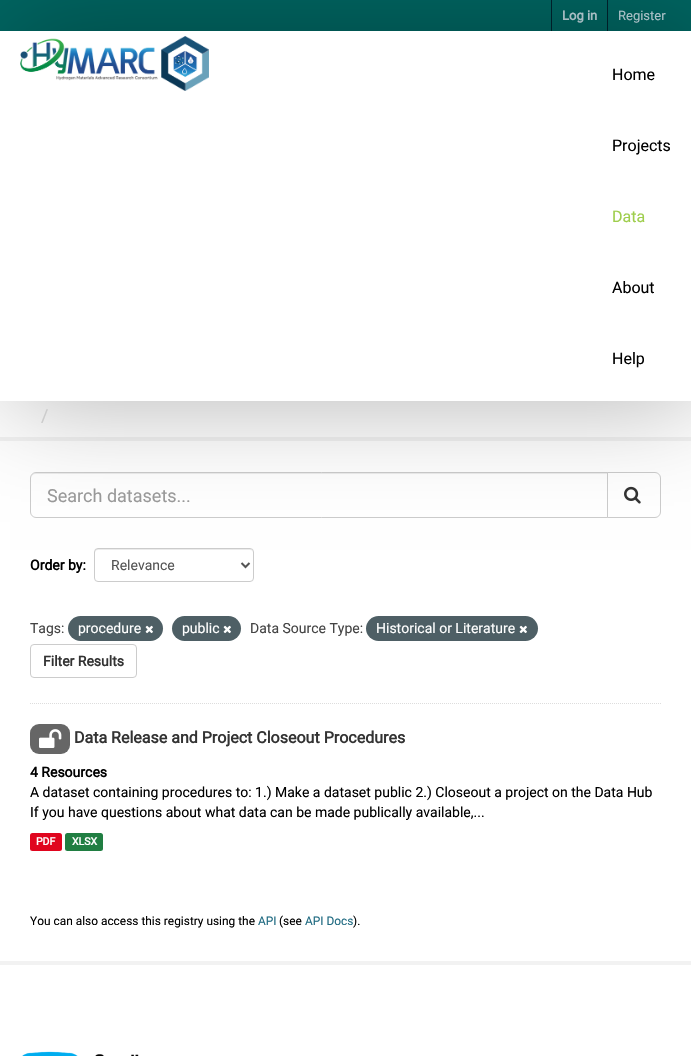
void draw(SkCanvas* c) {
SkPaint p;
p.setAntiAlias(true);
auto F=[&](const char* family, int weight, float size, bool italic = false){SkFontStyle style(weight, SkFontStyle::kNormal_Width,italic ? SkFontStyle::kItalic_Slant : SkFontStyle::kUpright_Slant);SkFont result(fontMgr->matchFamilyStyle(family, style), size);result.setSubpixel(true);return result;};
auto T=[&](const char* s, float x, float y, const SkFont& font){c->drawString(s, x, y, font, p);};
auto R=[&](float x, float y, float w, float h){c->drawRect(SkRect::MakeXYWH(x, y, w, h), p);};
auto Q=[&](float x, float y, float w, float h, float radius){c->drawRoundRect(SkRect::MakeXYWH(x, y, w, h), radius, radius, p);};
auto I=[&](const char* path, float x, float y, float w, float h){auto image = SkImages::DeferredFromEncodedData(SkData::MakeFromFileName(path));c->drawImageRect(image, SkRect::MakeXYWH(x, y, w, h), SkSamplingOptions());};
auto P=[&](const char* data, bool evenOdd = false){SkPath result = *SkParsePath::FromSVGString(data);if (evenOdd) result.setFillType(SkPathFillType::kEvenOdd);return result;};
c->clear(0xffffffff);
p.setColor(0xff006561);
R(0,0,691,31);
p.setColor(0xff00232e);
R(551,0,1,31);
auto f1 = F("Roboto",700,13);
p.setColor(0xffbfd7de);
T("Log in",562,20,f1);
p.setColor(0xff00232e);
R(607,0,1,31);
auto f2 = F("Roboto",400,13);
p.setColor(0xffbfd7de);
T("Register",618,20,f2);
p.setStroke(true);
p.setStrokeWidth(4);
p.setColor(0xfff2f2f2);
c->drawRect(SkRect::MakeXYWH(-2,439,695,524),p);
p.setStroke(false);
p.setColor(0xffececec);
c->drawPath(P("M36 474h571v-1h-571c-3 0-5 3-5 6c0-3 2-5 5-5z"),p);
p.setStroke(true);
p.setStrokeWidth(1);
p.setColor(0xffcccccc);
c->drawPath(P("M36 472.5h571.5v45h-571.5c-3 0-5.5-2.5-5.5-5.5v-34c0-3 2.5-5.5 5.5-5.5z"),p);
p.setStroke(false);
p.setColor(0xffffffff);
c->drawPath(P("M607.5 472.5h47.5c3 0 5.5 2.5 5.5 5.5v34c0 3-2.5 5.5-5.5 5.5h-47.5z"),p);
p.setStroke(true);
p.setColor(0xffcccccc);
c->drawPath(P("M607.5 472.5h47.5c3 0 5.5 2.5 5.5 5.5v34c0 3-2.5 5.5-5.5 5.5h-47.5z"),p);
I("2.png",624,486,17,18);
p.setStroke(false);
p.setColor(0xffececec);
c->drawPath(P("M98 550h152c2 0 3 1 3 3c0-2-1-4-3-4h-153c-2 0-2 2-2 4c0-2 1-3 3-3z"),p);
p.setStroke(true);
p.setColor(0xffcccccc);
c->drawRoundRect(SkRect::MakeXYWH(94.5,548.5,159,33),3.5,3.5,p);
c->save();
c->clipPath(P("M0 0h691v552h-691zm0 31h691v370h-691z",true),true);
p.setStroke(false);
p.setColor(0x4d000000);
p.setMaskFilter(SkMaskFilter::MakeBlur(kNormal_SkBlurStyle, 50));
c->drawRect(SkRect::MakeXYWH(10,31,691,370),p);
p.setMaskFilter(nullptr);
c->restore();
I("1.png",20,36,189,55);
auto f3 = F("Roboto",400,16);
p.setColor(0xff000000);
T("Home",612,80,f3);
T("Projects",612,151,f3);
p.setColor(0xff9fce4d);
T("Data",612,222,f3);
p.setColor(0xff000000);
T("About",612,293,f3);
T("Help",612,364,f3);
auto f4 = F("Roboto",400,18);
p.setColor(0xffcccccc);
T("/",41,422,f4);
p.setStroke(true);
p.setColor(0xffdddddd);
p.setPathEffect(SkDashPathEffect::Make({{1,1}}, 0));
c->drawPath(P("M30 703.5h631"),p);
p.setPathEffect(nullptr);
p.setStroke(false);
p.setColor(0xff999999);
T("Search datasets...",47,502,f4);
auto f5 = F("Roboto",700,14);
p.setColor(0xff000000);
T("Order by:",30,570,f5);
p.setStroke(true);
p.setStrokeWidth(2);
p.setColor(0xff555555);
c->drawPath(P("M241.5 563l4 4l4-4"),p);
auto f6 = F("Roboto",400,14);
p.setStroke(false);
T("Relevance",111,570,f6);
p.setColor(0xff444444);
T("Tags:",30,633,f6);
p.setColor(0xff4e5f65);
Q(68,616,95,25,12.5);
p.setColor(0xffffffff);
T("procedure",78,633,f6);
I("3.png",145,625,8,9);
p.setColor(0xff4e5f65);
Q(172,616,69,25,12.5);
p.setColor(0xffffffff);
T("public",182,633,f6);
I("3.png",223,625,8,9);
p.setColor(0xff444444);
T("Data Source Type:",250,633,f6);
p.setColor(0xff4e5f65);
Q(366,616,172,25,12.5);
p.setColor(0xffffffff);
T("Historical or Literature",376,633,f6);
I("3.png",519,625,8,9);
p.setStroke(true);
p.setStrokeWidth(1);
p.setColor(0xffcccccc);
c->drawRoundRect(SkRect::MakeXYWH(30.5,644.5,106,33),3.5,3.5,p);
p.setStroke(false);
p.setColor(0xff333333);
T("Filter Results",43,666,f5);
p.setColor(0xff666666);
Q(30,724,40,30,9);
I("4.png",39,729,23,19);
auto f7 = F("Roboto",700,16);
p.setColor(0xff333333);
T("Data Release and Project Closeout Procedures",74,743,f7);
p.setColor(0xff000000);
T("4 Resources",30,777,f5);
T("A dataset containing procedures to: 1.) Make a dataset public 2.) Closeout a project on the Data Hub",30,797,f6);
T("If you have questions about what data can be made publically available,...",30,817,f6);
p.setColor(0xffe0051e);
Q(30,833,32,18,2.5);
auto f8 = F("Roboto",700,10.5);
p.setColor(0xffffffff);
T("PDF",36,845,f8);
p.setColor(0xff207e42);
Q(65,833,38,18,2.5);
p.setColor(0xffffffff);
T("XLSX",72,845,f8);
auto f9 = F("Roboto",400,11.9);
p.setColor(0xff000000);
T("You can also access this registry using the",30,925,f9);
p.setColor(0xff206b82);
T("API",258,925,f9);
p.setColor(0xff000000);
T("(see",279,925,f9);
p.setColor(0xff206b82);
T("API Docs",305,925,f9);
p.setColor(0xff000000);
T(").",353,925,f9);
I("5.png",22,1051,117,5);
}
